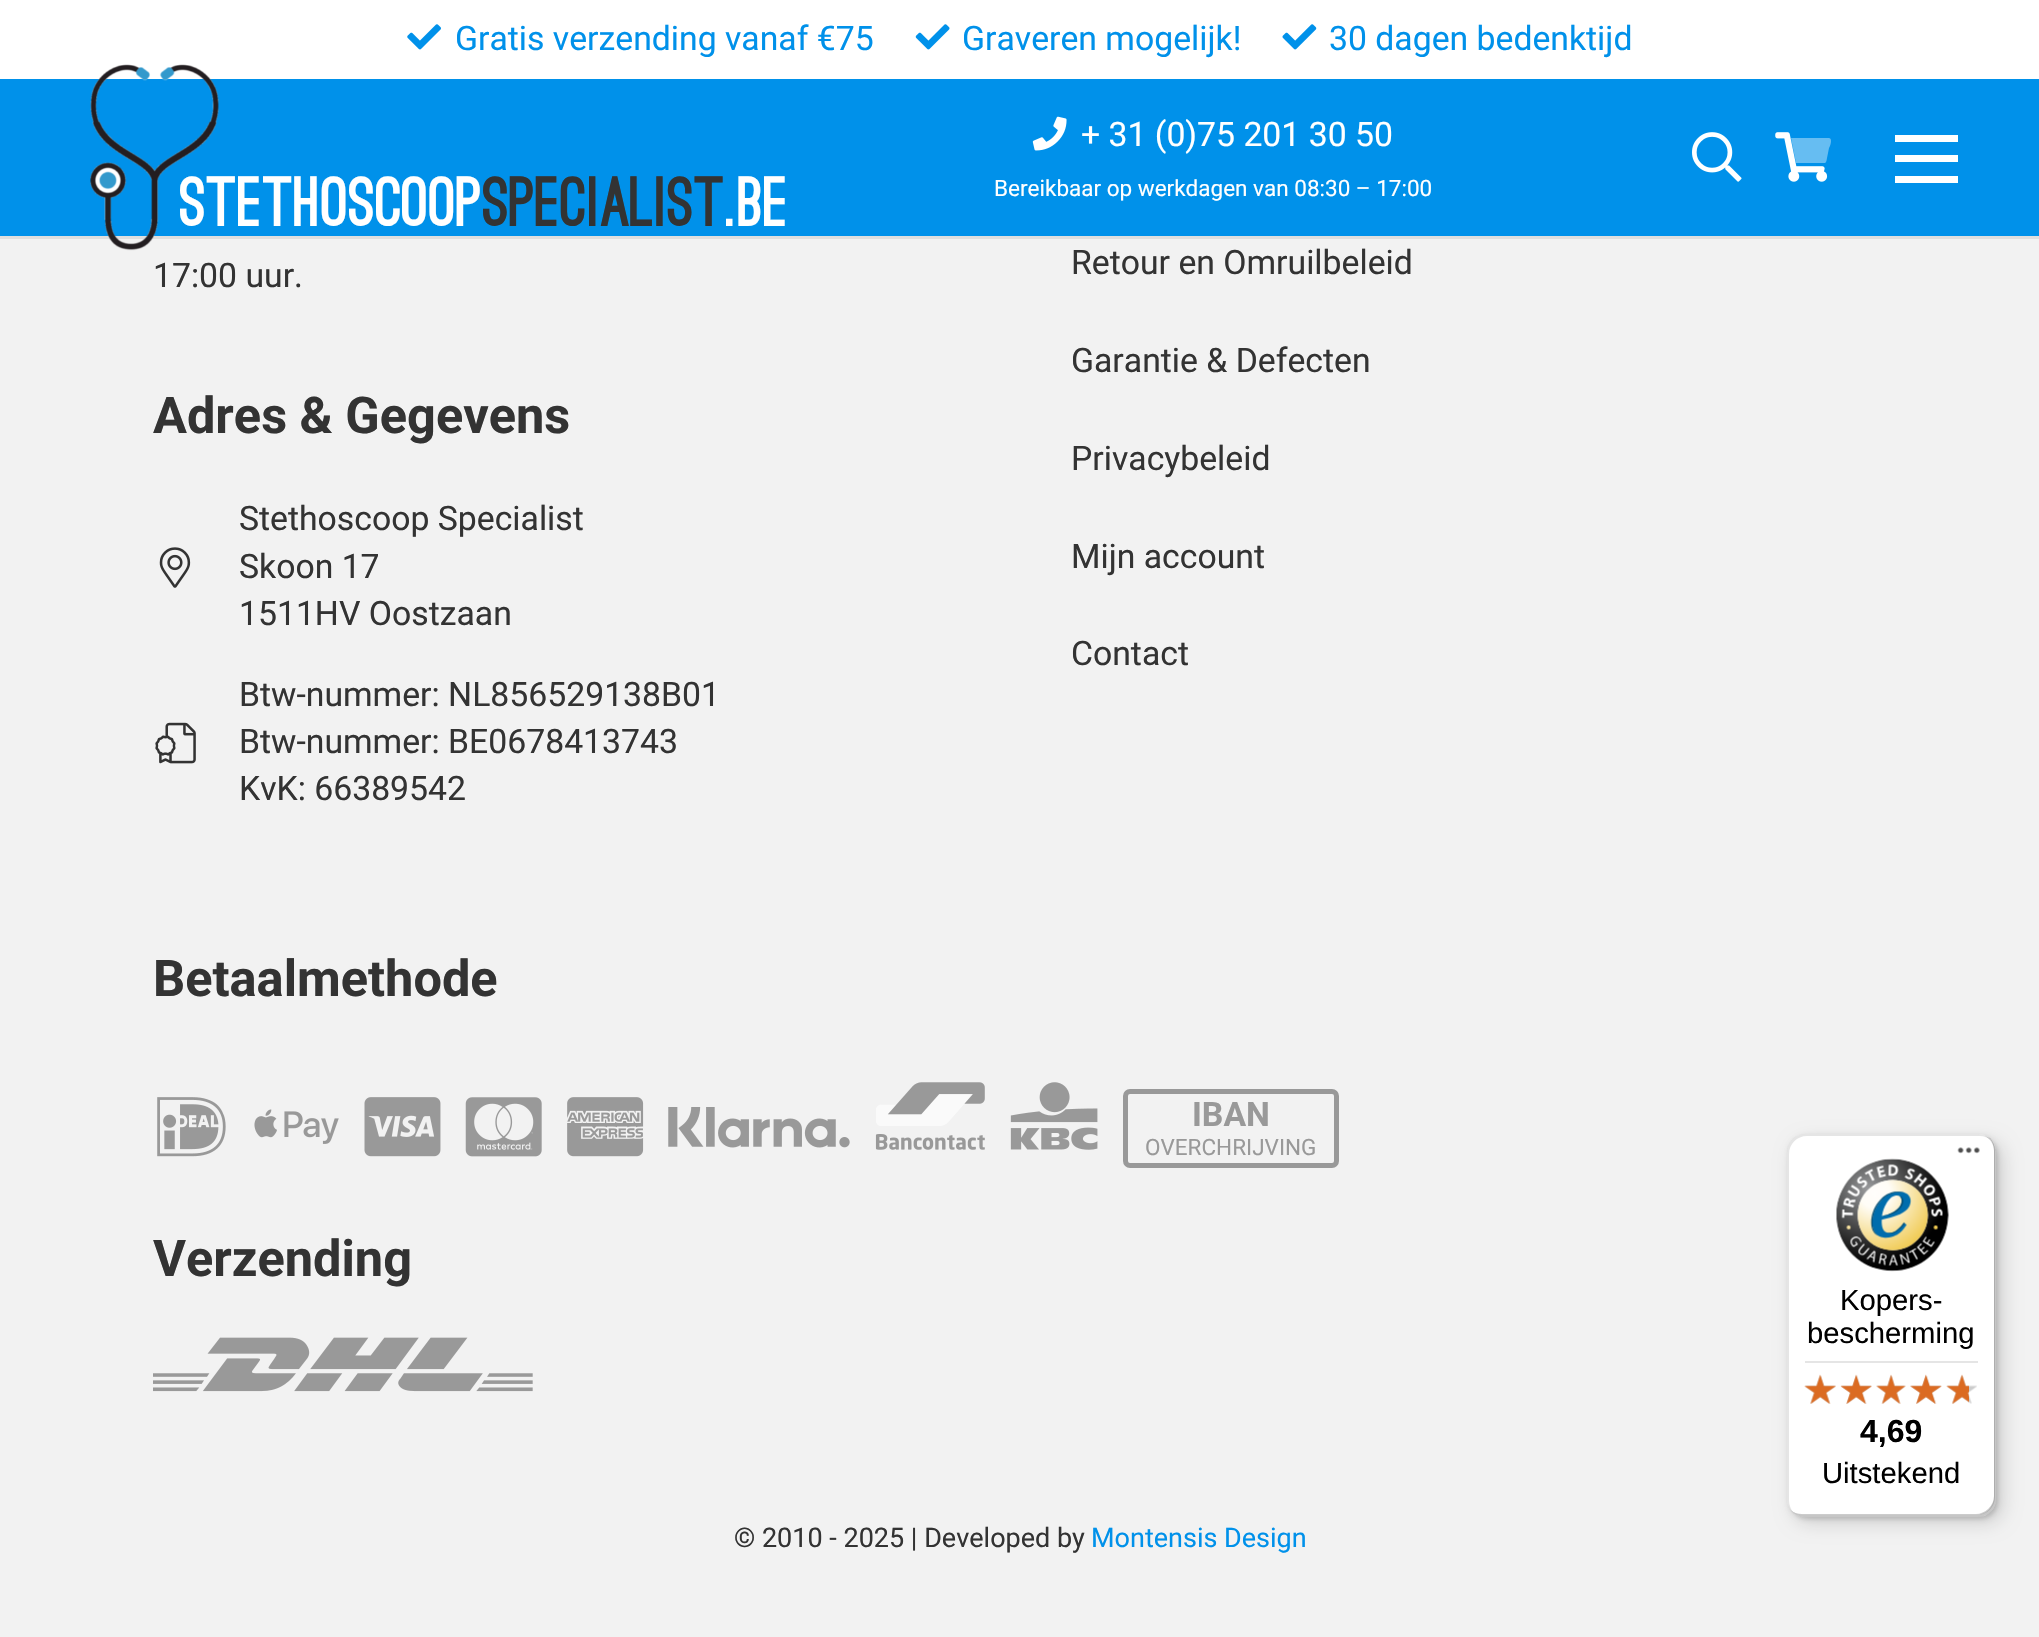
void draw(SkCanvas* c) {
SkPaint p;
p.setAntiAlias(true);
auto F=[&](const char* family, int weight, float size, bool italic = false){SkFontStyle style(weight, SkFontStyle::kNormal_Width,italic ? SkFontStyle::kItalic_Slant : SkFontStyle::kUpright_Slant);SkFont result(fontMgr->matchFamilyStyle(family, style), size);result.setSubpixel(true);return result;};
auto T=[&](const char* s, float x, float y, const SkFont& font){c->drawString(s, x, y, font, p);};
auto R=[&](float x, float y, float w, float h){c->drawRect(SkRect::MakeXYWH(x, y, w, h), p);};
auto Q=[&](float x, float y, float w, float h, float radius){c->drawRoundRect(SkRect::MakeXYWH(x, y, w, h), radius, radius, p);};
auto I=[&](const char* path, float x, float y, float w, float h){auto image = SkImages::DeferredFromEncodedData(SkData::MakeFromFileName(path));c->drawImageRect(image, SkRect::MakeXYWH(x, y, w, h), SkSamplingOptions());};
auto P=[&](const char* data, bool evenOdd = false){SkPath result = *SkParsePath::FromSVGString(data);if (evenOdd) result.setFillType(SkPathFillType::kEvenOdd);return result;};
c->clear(0xfff2f2f2);
p.setColor(0xffffffff);
R(0,0,2039,79);
I("1.png",407,24,34,26);
auto f1 = F("Roboto",400,33.75);
p.setColor(0xff0091ea);
T("Gratis verzending vanaf €75",455,50,f1);
I("2.png",915,24,35,26);
T("Graveren mogelijk!",962,50,f1);
I("3.png",1282,24,35,26);
T("30 dagen bedenktijd",1329,50,f1);
p.setColor(0x14000000);
c->drawPath(P("M0 236v3h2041v-158v155z"),p);
p.setColor(0xff0091ea);
R(0,79,2039,157);
I("4.png",1032,116,35,35);
p.setColor(0xffffffff);
T("+ 31 (0)75 201 30 50",1081,146,f1);
auto f2 = F("Roboto",400,22.5);
T("Bereikbaar op werkdagen van 08:30 – 17:00",994,196,f2);
I("5.png",1692,132,50,50);
I("6.png",1775,132,53,50);
p.setColor(0x66ffffff);
c->drawPath(P("M1829 138c4 0 1 9 0 10l-2 10c-1 6-1 5-8 5h-23l-5-25z"),p);
p.setColor(0xffffffff);
R(1895,155,63,7);
R(1895,135,63,7);
R(1895,176,63,7);
auto f3 = F("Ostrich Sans",900,67.5);
T("STETHOSCOOP",180,226,f3);
I("7.png",90,64,129,187);
p.setColor(0xff333333);
T("SPECIALIST",483,226,f3);
p.setColor(0xffffffff);
T(".BE",726,226,f3);
p.setColor(0xff333333);
T("17:00 uur.",153,287,f1);
auto f4 = F("Roboto",700,50.5);
T("Adres & Gegevens",153,433,f4);
I("8.png",159,547,32,41);
T("Stethoscoop Specialist",239,530,f1);
T("Skoon 17",239,578,f1);
T("1511HV Oostzaan",239,625,f1);
I("9.png",155,722,41,42);
T("Btw-nummer: NL856529138B01",239,706,f1);
T("Btw-nummer: BE0678413743",239,753,f1);
T("KvK: 66389542",239,800,f1);
T("Retour en Omruilbeleid",1071,274,f1);
T("Garantie & Defecten",1071,372,f1);
T("Privacybeleid",1071,470,f1);
T("Mijn account",1071,568,f1);
T("Contact",1071,665,f1);
T("Betaalmethode",153,996,f4);
I("10.png",157,1097,69,60);
I("11.png",254,1109,85,35);
I("12.png",364,1097,77,60);
I("13.png",465,1097,77,60);
I("14.png",567,1097,77,60);
I("15.png",668,1107,182,41);
I("16.png",875,1082,110,68);
I("17.png",1010,1082,88,68);
p.setStroke(true);
p.setStrokeWidth(5);
p.setColor(0xff999999);
c->drawRoundRect(SkRect::MakeXYWH(1125.5,1091.5,211,74),4.5,4.5,p);
auto f5 = F("Roboto",700,33.75);
p.setStroke(false);
T("IBAN",1192,1126,f5);
T("OVERCHRIJVING",1145,1155,f2);
p.setColor(0xff333333);
T("Verzending",153,1276,f4);
I("18.png",153,1337,380,55);
auto f6 = F("Roboto",400,27);
T("© 2010 - 2025 | Developed by",734,1547,f6);
p.setColor(0xff0091ea);
T("Montensis Design",1091,1547,f6);
p.setColor(0x26000000);
p.setMaskFilter(SkMaskFilter::MakeBlur(kNormal_SkBlurStyle, 9));
c->drawRoundRect(SkRect::MakeXYWH(1793,1141,210,382),18,18,p);
p.setMaskFilter(nullptr);
p.setMaskFilter(SkMaskFilter::MakeBlur(kNormal_SkBlurStyle, 2));
c->drawRoundRect(SkRect::MakeXYWH(1789,1136,209,383),18,18,p);
p.setMaskFilter(nullptr);
p.setColor(0xffffffff);
Q(1787,1134,209,383,18);
p.setColor(0x1a000000);
c->drawPath(P("M1807 1136h173c4 0 8 2 12 4c-4-4-9-6-14-6h-173c-10 0-18 8-18 18v347c0 5 2 10 6 14c-2-4-4-8-4-12v-347c0-10 8-18 18-18z"),p);
p.setColor(0x33000000);
c->drawPath(P("M1791 1510c3 4 8 7 14 7h173c10 0 18-8 18-18v-347c0-6-3-11-7-15c3 4 5 8 5 13v346c0 10-9 18-18 18h-174c-4 0-8-1-11-4z"),p);
p.setColor(0x33323232);
c->drawPath(P("M1791 1511c4 4 9 6 14 6h173c10 0 18-8 18-18v-347c0-7-4-14-11-16c5 3 9 8 9 15v346c0 10-8 18-18 18h-173c-4 0-8-2-12-4z"),p);
p.setColor(0x4dffffff);
c->drawPath(P("M1791 1511c4 4 9 6 14 6h173c10 0 18-8 18-18v-347c0-5-2-10-5-13c2 3 4 7 4 12v346c0 10-8 18-18 18h-174c-4 0-8-2-12-4z"),p);
I("19.png",1957,1147,23,7);
I("20.png",1836,1158,113,114);
auto f7 = F("Liberation Sans",400,29.25);
p.setColor(0xff000000);
T("Kopers-",1840,1310,f7);
T("bescherming",1807,1343,f7);
p.setColor(0xffe5e5e5);
R(1805,1361,173,2);
I("26.png",1805,1375,31,29);
I("21.png",1804,1374,32,30);
I("27.png",1841,1375,31,29);
I("22.png",1840,1374,32,30);
I("28.png",1876,1375,30,29);
I("23.png",1876,1374,30,30);
I("29.png",1910,1375,32,29);
I("24.png",1910,1374,32,30);
I("30.png",1947,1375,30,29);
I("25.png",1946,1374,23,30);
auto f8 = F("Liberation Sans",700,32);
p.setColor(0xff000000);
T("4,69",1860,1442,f8);
T("Uitstekend",1822,1483,f7);
}
